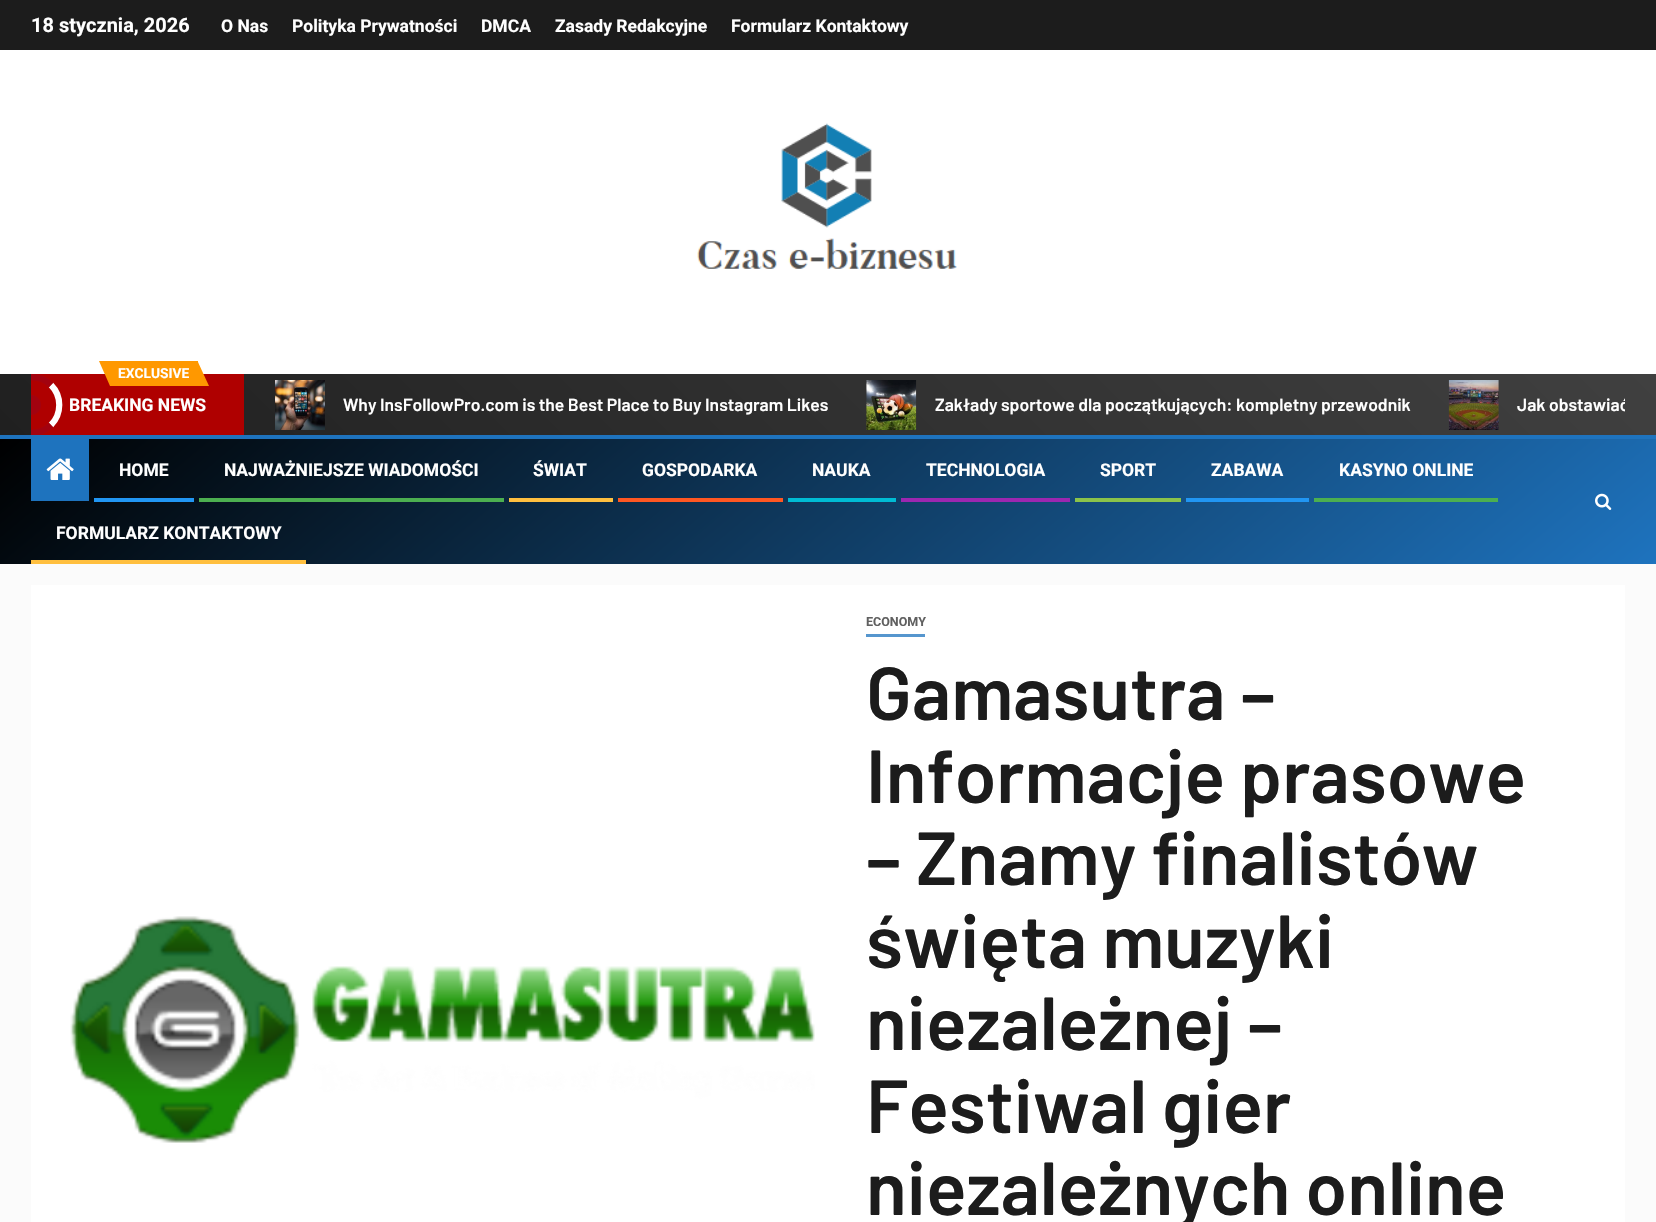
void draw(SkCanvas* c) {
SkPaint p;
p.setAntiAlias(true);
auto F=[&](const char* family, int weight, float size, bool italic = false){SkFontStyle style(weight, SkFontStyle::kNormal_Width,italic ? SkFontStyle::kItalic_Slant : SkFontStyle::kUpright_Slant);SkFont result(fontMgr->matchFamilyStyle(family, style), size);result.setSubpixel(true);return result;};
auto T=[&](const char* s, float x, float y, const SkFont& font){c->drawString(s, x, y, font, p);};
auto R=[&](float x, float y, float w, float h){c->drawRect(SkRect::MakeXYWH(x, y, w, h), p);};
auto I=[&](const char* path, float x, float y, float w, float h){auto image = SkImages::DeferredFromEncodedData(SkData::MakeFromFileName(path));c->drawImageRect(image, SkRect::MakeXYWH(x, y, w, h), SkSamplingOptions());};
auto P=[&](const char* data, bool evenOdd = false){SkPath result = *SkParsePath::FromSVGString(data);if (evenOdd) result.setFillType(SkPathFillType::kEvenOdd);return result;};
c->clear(0xfffbfbfb);
p.setColor(0xffffffff);
R(0,50,1656,324);
p.setColor(0xff1c1c1c);
R(0,0,1656,50);
auto f1 = F("Roboto",700,20);
p.setColor(0xffffffff);
T("18 stycznia, 2026",31,32,f1);
auto f2 = F("Roboto",700,17.5);
T("O Nas",221,32,f2);
T("Polityka Prywatności",292,32,f2);
T("DMCA",481,32,f2);
T("Zasady Redakcyjne",555,32,f2);
T("Formularz Kontaktowy",731,32,f2);
I("1.png",697,123,260,146);
{
const SkColor colors[] = {0xff202020,0xff404040};
const float stops[] = {0,1};
const SkPoint ends[] = {{399,834}, {1258,-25}};
p.setShader(SkGradientShader::MakeLinear(ends, colors, stops, 2, SkTileMode::kClamp));
p.setAlpha(255);
}
R(0,374,1656,61);
p.setShader(nullptr);
p.setColor(0xffaf0000);
R(31,374,213,61);
p.setColor(0xffff9800);
R(110,361,88,25);
c->drawPath(P("M99 361h11v25z"),p);
auto f3 = F("Roboto",700,13.75);
p.setColor(0xffffffff);
T("EXCLUSIVE",118,378,f3);
p.setColor(0xffff9800);
c->drawPath(P("M209 386h-11.5v-25z"),p);
p.setStroke(true);
p.setStrokeWidth(6.2);
p.setColor(0xffffffff);
c->drawPath(P("M51 385c11 11 11 29 0 40"),p);
c->save();
c->clipRect(SkRect::MakeXYWH(31,374,213,61));
p.setColor(0xffa2020f);
c->drawPath(P("M11.5 385c10.5-10.5 29-10.5 39.5 0m0 40c-10.5 10.5-29 10.5-39.5 0"),p);
c->restore();
p.setStroke(false);
c->drawPath(P("M31 395c5.5 0 10 4.5 10 10c0 5.5-4.5 10-10 10z"),p);
p.setColor(0xffffffff);
T("BREAKING NEWS",69,411,f2);
I("2.png",275,380,50,50);
auto f4 = F("Barlow",600,17.5);
T("Why InsFollowPro.com is the Best Place to Buy Instagram Likes",343,411,f4);
I("3.png",866,380,51,50);
T("Zakłady sportowe dla początkujących: kompletny przewodnik",935,411,f4);
I("4.png",1448,380,51,50);
c->save();
c->clipRect(SkRect::MakeXYWH(250,380,1375,50));
T("Jak obstawiać",1517,411,f4);
c->restore();
{
const SkColor colors[] = {0xff000000,0xff1e73be};
const float stops[] = {0,1};
const SkPoint ends[] = {{455,57}, {1201,946}};
p.setShader(SkGradientShader::MakeLinear(ends, colors, stops, 2, SkTileMode::kClamp));
p.setAlpha(255);
}
R(0,439,1656,125);
p.setShader(nullptr);
p.setColor(0xff1e73be);
R(0,435,1656,4);
R(31,439,58,62);
I("5.png",46,458,28,22);
p.setColor(0xffffffff);
T("HOME",119,476,f2);
p.setColor(0xff2196f3);
R(94,498,100,4);
p.setColor(0xffffffff);
T("NAJWAŻNIEJSZE WIADOMOŚCI",224,476,f2);
p.setColor(0xff4caf50);
R(199,498,305,4);
p.setColor(0xffffffff);
T("ŚWIAT",533,476,f2);
p.setColor(0xffffbf3f);
R(509,498,104,4);
p.setColor(0xffffffff);
T("GOSPODARKA",642,476,f2);
p.setColor(0xffff5722);
R(618,498,165,4);
p.setColor(0xffffffff);
T("NAUKA",812,476,f2);
p.setColor(0xff00bcd4);
R(788,498,108,4);
p.setColor(0xffffffff);
T("TECHNOLOGIA",926,476,f2);
p.setColor(0xff9c27b0);
R(901,498,169,4);
p.setColor(0xffffffff);
T("SPORT",1100,476,f2);
p.setColor(0xff8bc34a);
R(1075,498,106,4);
p.setColor(0xffffffff);
T("ZABAWA",1211,476,f2);
p.setColor(0xff2196f3);
R(1186,498,123,4);
p.setColor(0xffffffff);
T("KASYNO ONLINE",1339,476,f2);
p.setColor(0xff4caf50);
R(1314,498,184,4);
p.setColor(0xffffffff);
T("FORMULARZ KONTAKTOWY",56,539,f2);
p.setColor(0xffffbf3f);
R(31,560,275,4);
I("6.png",1595,493,17,17);
p.setColor(0xffffffff);
R(31,585,1594,637);
I("7.png",70,916,745,227);
p.setColor(0xff5696ce);
R(866,634,59,3);
auto f5 = F("Roboto",700,12.5);
p.setColor(0xff606060);
T("ECONOMY",866,626,f5);
auto f6 = F("Barlow",600,75);
p.setColor(0xff1c1c1c);
T("Gamasutra –",866,720,f6);
T("Informacje prasowe",866,803,f6);
T("– Znamy finalistów",866,885,f6);
T("święta muzyki",866,968,f6);
T("niezależnej –",866,1050,f6);
T("Festiwal gier",866,1133,f6);
T("niezależnych online",866,1215,f6);
}
